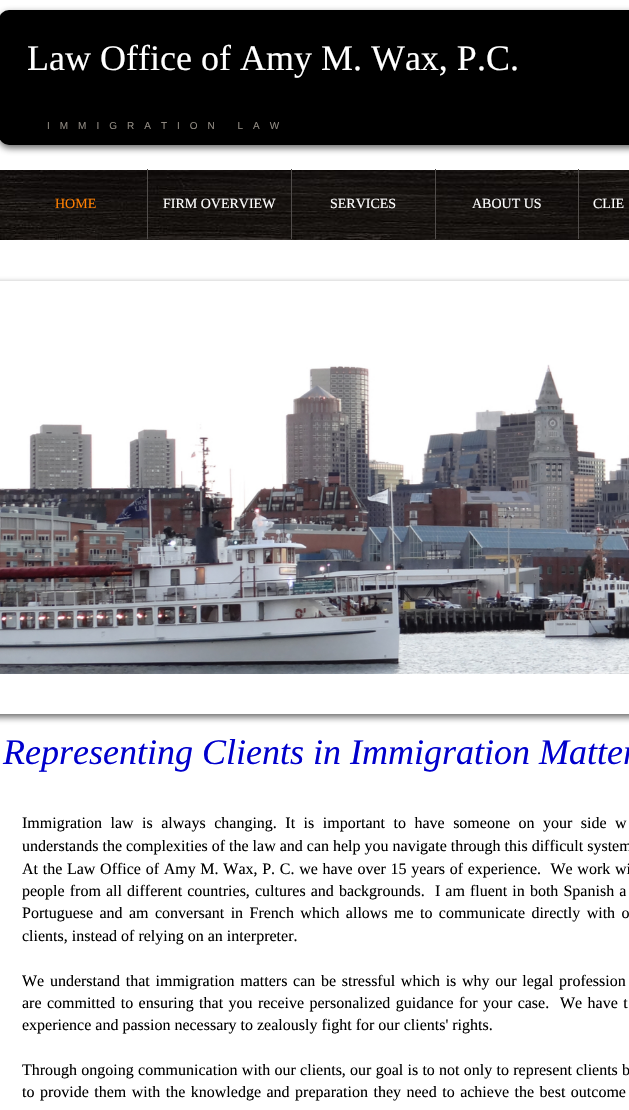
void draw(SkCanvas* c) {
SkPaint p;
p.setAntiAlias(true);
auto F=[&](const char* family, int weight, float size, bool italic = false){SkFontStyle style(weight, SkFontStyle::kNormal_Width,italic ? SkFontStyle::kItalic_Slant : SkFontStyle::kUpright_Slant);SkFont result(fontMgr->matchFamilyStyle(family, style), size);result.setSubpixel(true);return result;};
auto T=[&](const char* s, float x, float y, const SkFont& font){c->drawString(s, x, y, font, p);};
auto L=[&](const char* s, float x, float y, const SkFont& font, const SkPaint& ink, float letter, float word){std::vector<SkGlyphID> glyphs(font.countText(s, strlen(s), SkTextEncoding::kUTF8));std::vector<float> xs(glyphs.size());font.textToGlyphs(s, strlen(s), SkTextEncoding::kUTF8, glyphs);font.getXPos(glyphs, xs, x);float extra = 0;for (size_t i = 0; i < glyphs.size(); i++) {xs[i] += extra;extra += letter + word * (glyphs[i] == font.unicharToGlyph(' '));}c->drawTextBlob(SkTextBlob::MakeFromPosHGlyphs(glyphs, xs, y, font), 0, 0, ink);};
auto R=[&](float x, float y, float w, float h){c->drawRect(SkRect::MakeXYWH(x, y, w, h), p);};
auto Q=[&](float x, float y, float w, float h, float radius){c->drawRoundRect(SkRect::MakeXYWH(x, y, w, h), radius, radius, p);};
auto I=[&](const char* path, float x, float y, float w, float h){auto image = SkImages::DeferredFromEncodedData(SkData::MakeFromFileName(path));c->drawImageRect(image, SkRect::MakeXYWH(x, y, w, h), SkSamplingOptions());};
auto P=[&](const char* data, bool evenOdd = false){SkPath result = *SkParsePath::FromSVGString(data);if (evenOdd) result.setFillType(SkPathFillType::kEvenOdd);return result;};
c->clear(0xffffffff);
p.setColor(0xbf323232);
p.setMaskFilter(SkMaskFilter::MakeBlur(kNormal_SkBlurStyle, 3.5));
c->drawRoundRect(SkRect::MakeXYWH(-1,13,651,135),10,10,p);
p.setMaskFilter(nullptr);
p.setColor(0xff000000);
Q(-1,10,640,135,10);
auto f1 = F("Liberation Serif",400,36);
p.setColor(0xffffffff);
T("Law Office of Amy M. Wax, P.C.",27,70,f1);
auto f2 = F("Liberation Sans",400,10);
p.setColor(0xff8f8981);
L("IMMIGRATION LAW",47,129,f2,p,10,0);
I("1.png",0,170,629,70);
p.setColor(0xff524e4c);
R(147,169,1,70);
auto f3 = F("Liberation Serif",400,14);
p.setColor(0xffff7f00);
T("HOME",55,208,f3);
p.setColor(0xff524e4c);
R(291,169,1,70);
p.setColor(0xffffffff);
T("FIRM OVERVIEW",163,208,f3);
p.setColor(0xff524e4c);
R(435,169,1,70);
p.setColor(0xffffffff);
T("SERVICES",330,208,f3);
p.setColor(0xff524e4c);
R(578,169,1,70);
p.setColor(0xffffffff);
T("ABOUT US",472,208,f3);
T("CLIE",593,208,f3);
c->save();
c->clipPath(P("M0 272h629v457h-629zm-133 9h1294v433h-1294z",true),true);
p.setColor(0xbf323232);
p.setMaskFilter(SkMaskFilter::MakeBlur(kNormal_SkBlurStyle, 3.5));
c->drawRect(SkRect::MakeXYWH(-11,284,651,433),p);
p.setMaskFilter(nullptr);
c->restore();
I("2.png",0,364,629,310);
auto f4 = F("Liberation Serif",400,36,true);
p.setColor(0xff0000cd);
T("Representing Clients in Immigration Matter",3,764,f4);
auto f5 = F("Liberation Serif",400,16);
p.setColor(0xff000000);
L("Immigration law is always changing. It is important to have someone on your side w",22,828,f5,p,0,4.5);
T("understands the complexities of the law and can help you navigate through this difficult system",22,851,f5);
L("At the Law Office of Amy M. Wax, P. C. we have over 15 years of experience.  We work wi",22,874,f5,p,0,.7);
L("people from all different countries, cultures and backgrounds.  I am fluent in both Spanish a",22,896,f5,p,0,1.1);
L("Portuguese and am conversant in French which allows me to communicate directly with o",22,918,f5,p,0,2.4);
T("clients, instead of relying on an interpreter.",22,941,f5);
L("We understand that immigration matters can be stressful which is why our legal profession",22,986,f5,p,0,1.7);
L("are committed to ensuring that you receive personalized guidance for your case.  We have t",22,1008,f5,p,0,1.4);
T("experience and passion necessary to zealously fight for our clients' rights.",22,1030,f5);
L("Through ongoing communication with our clients, our goal is to not only to represent clients b",22,1075,f5,p,0,.25);
L("to provide them with the knowledge and preparation they need to achieve the best outcome",22,1097,f5,p,0,1.5);
}
